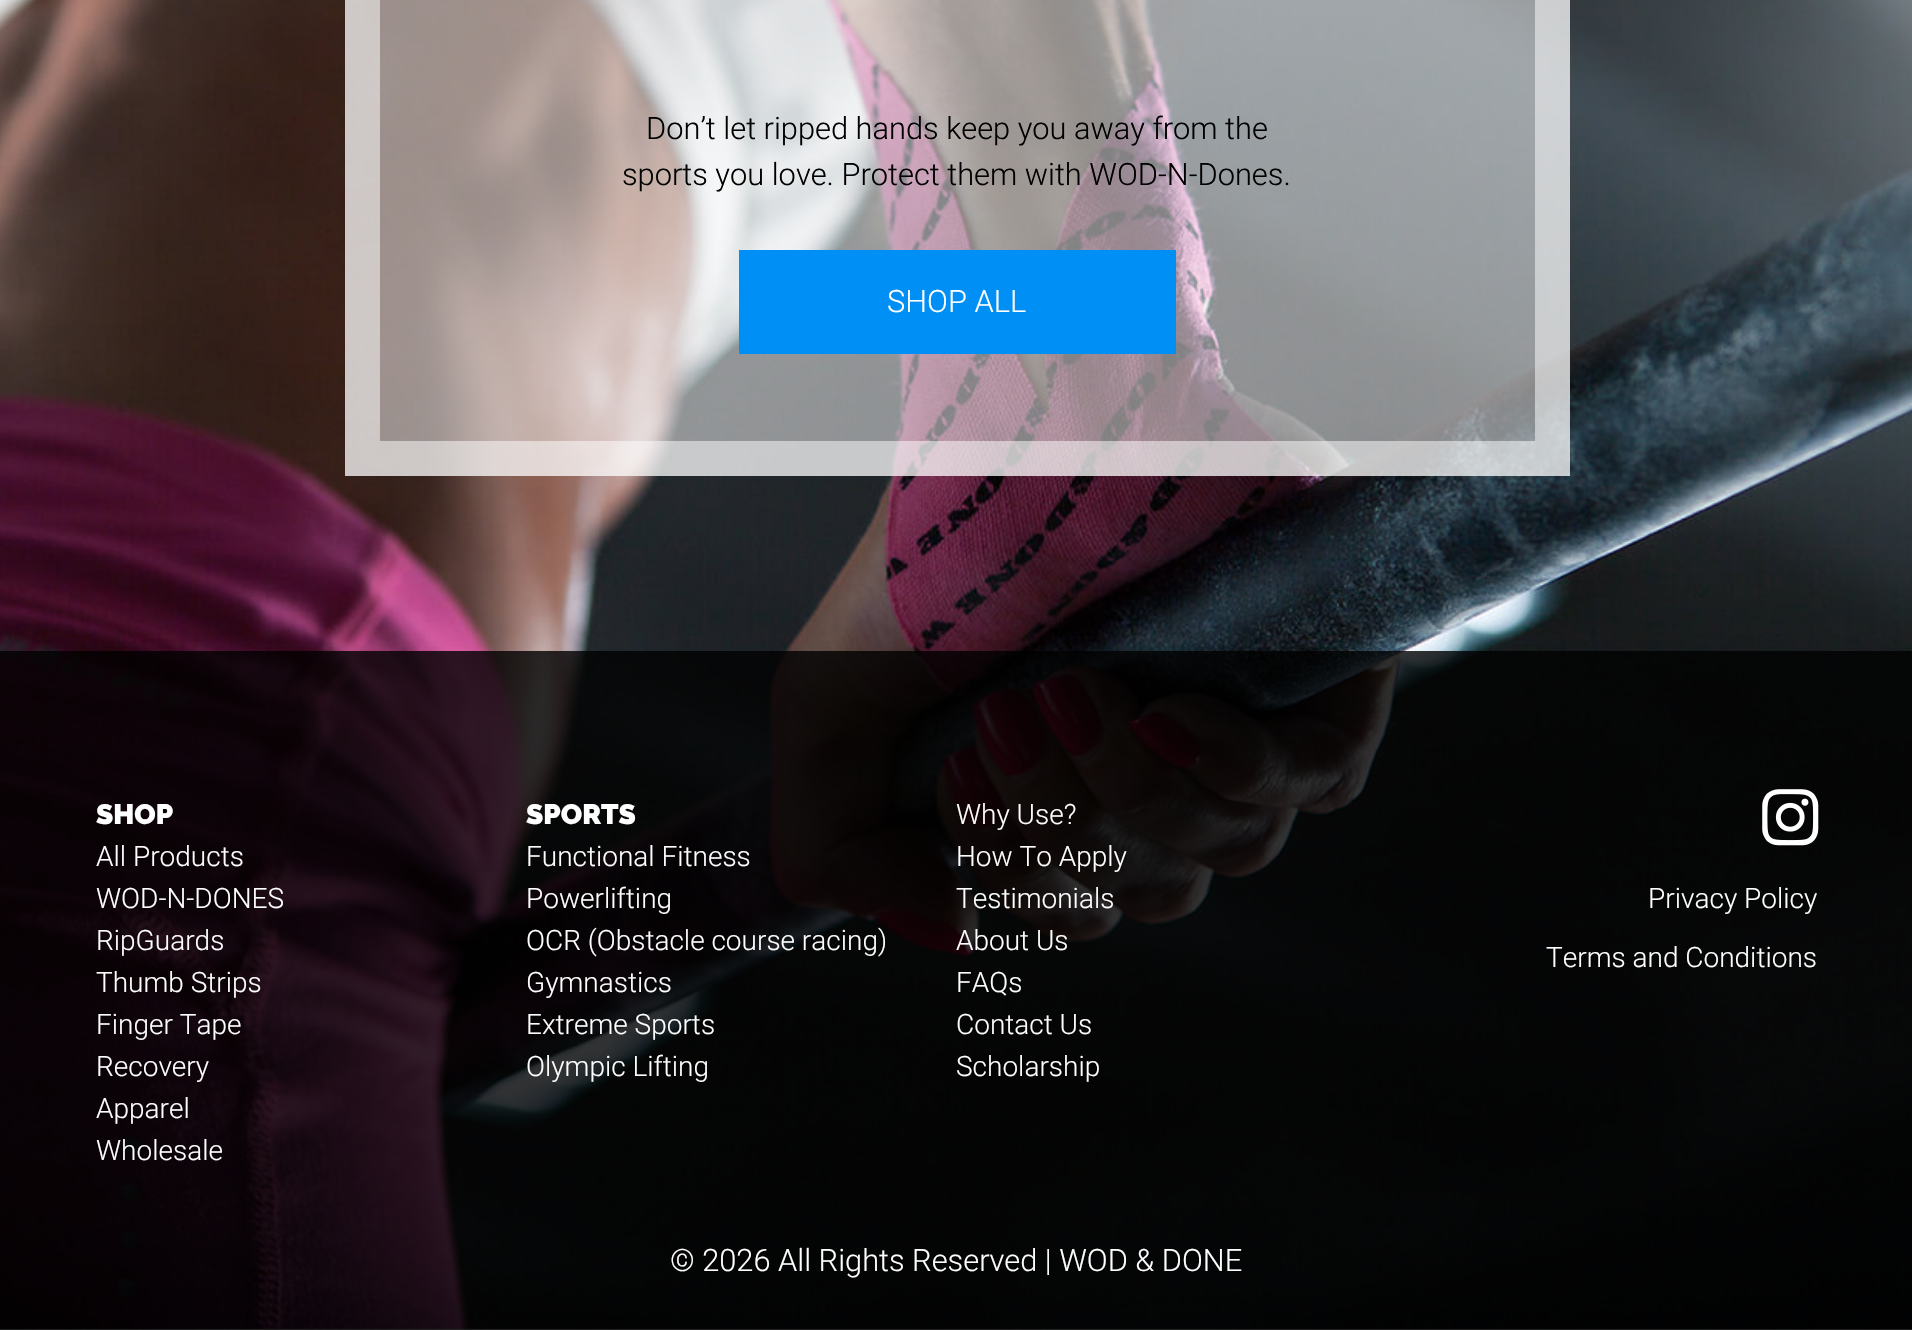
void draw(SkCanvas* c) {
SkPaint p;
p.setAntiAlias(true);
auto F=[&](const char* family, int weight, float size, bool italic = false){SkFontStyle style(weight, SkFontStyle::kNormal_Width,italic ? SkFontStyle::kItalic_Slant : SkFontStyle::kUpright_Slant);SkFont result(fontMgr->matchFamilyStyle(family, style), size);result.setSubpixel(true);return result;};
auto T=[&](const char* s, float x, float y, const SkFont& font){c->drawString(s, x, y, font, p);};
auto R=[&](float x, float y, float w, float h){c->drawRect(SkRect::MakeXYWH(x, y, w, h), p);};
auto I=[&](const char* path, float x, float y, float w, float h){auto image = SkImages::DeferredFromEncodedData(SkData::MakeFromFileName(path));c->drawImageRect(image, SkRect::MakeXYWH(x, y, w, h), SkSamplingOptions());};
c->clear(0xffffffff);
I("1.png",0,0,1912,1330);
p.setColor(0x80ffffff);
R(345,0,1225,476);
p.setStroke(true);
p.setStrokeWidth(35);
c->drawRect(SkRect::MakeXYWH(362.5,-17.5,1190,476),p);
auto f1 = F("Roboto",300,30.8);
p.setStroke(false);
p.setColor(0xff000000);
T("Don’t let ripped hands keep you away from the",646,139,f1);
T("sports you love. Protect them with WOD-N-Dones.",622,185,f1);
p.setColor(0xff008ff4);
R(739,250,437,104);
p.setColor(0xffffffff);
T("SHOP ALL",887,312,f1);
p.setColor(0xcc000000);
R(0,651,1912,679);
auto f2 = F("Raleway",900,28);
p.setColor(0xffffffff);
T("SHOP",96,824,f2);
auto f3 = F("Roboto",300,28);
T("All Products",96,866,f3);
T("WOD-N-DONES",96,908,f3);
T("RipGuards",96,950,f3);
T("Thumb Strips",96,992,f3);
T("Finger Tape",96,1034,f3);
T("Recovery",96,1076,f3);
T("Apparel",96,1118,f3);
T("Wholesale",96,1160,f3);
T("SPORTS",526,824,f2);
T("Functional Fitness",526,866,f3);
T("Powerlifting",526,908,f3);
T("OCR (Obstacle course racing)",526,950,f3);
T("Gymnastics",526,992,f3);
T("Extreme Sports",526,1034,f3);
T("Olympic Lifting",526,1076,f3);
T("Why Use?",956,824,f3);
T("How To Apply",956,866,f3);
T("Testimonials",956,908,f3);
T("About Us",956,950,f3);
T("FAQs",956,992,f3);
T("Contact Us",956,1034,f3);
T("Scholarship",956,1076,f3);
I("2.png",1762,789,57,57);
T("Privacy Policy",1648,908,f3);
T("Terms and Conditions",1546,967,f3);
T("© 2026 All Rights Reserved | WOD & DONE",670,1271,f1);
}
